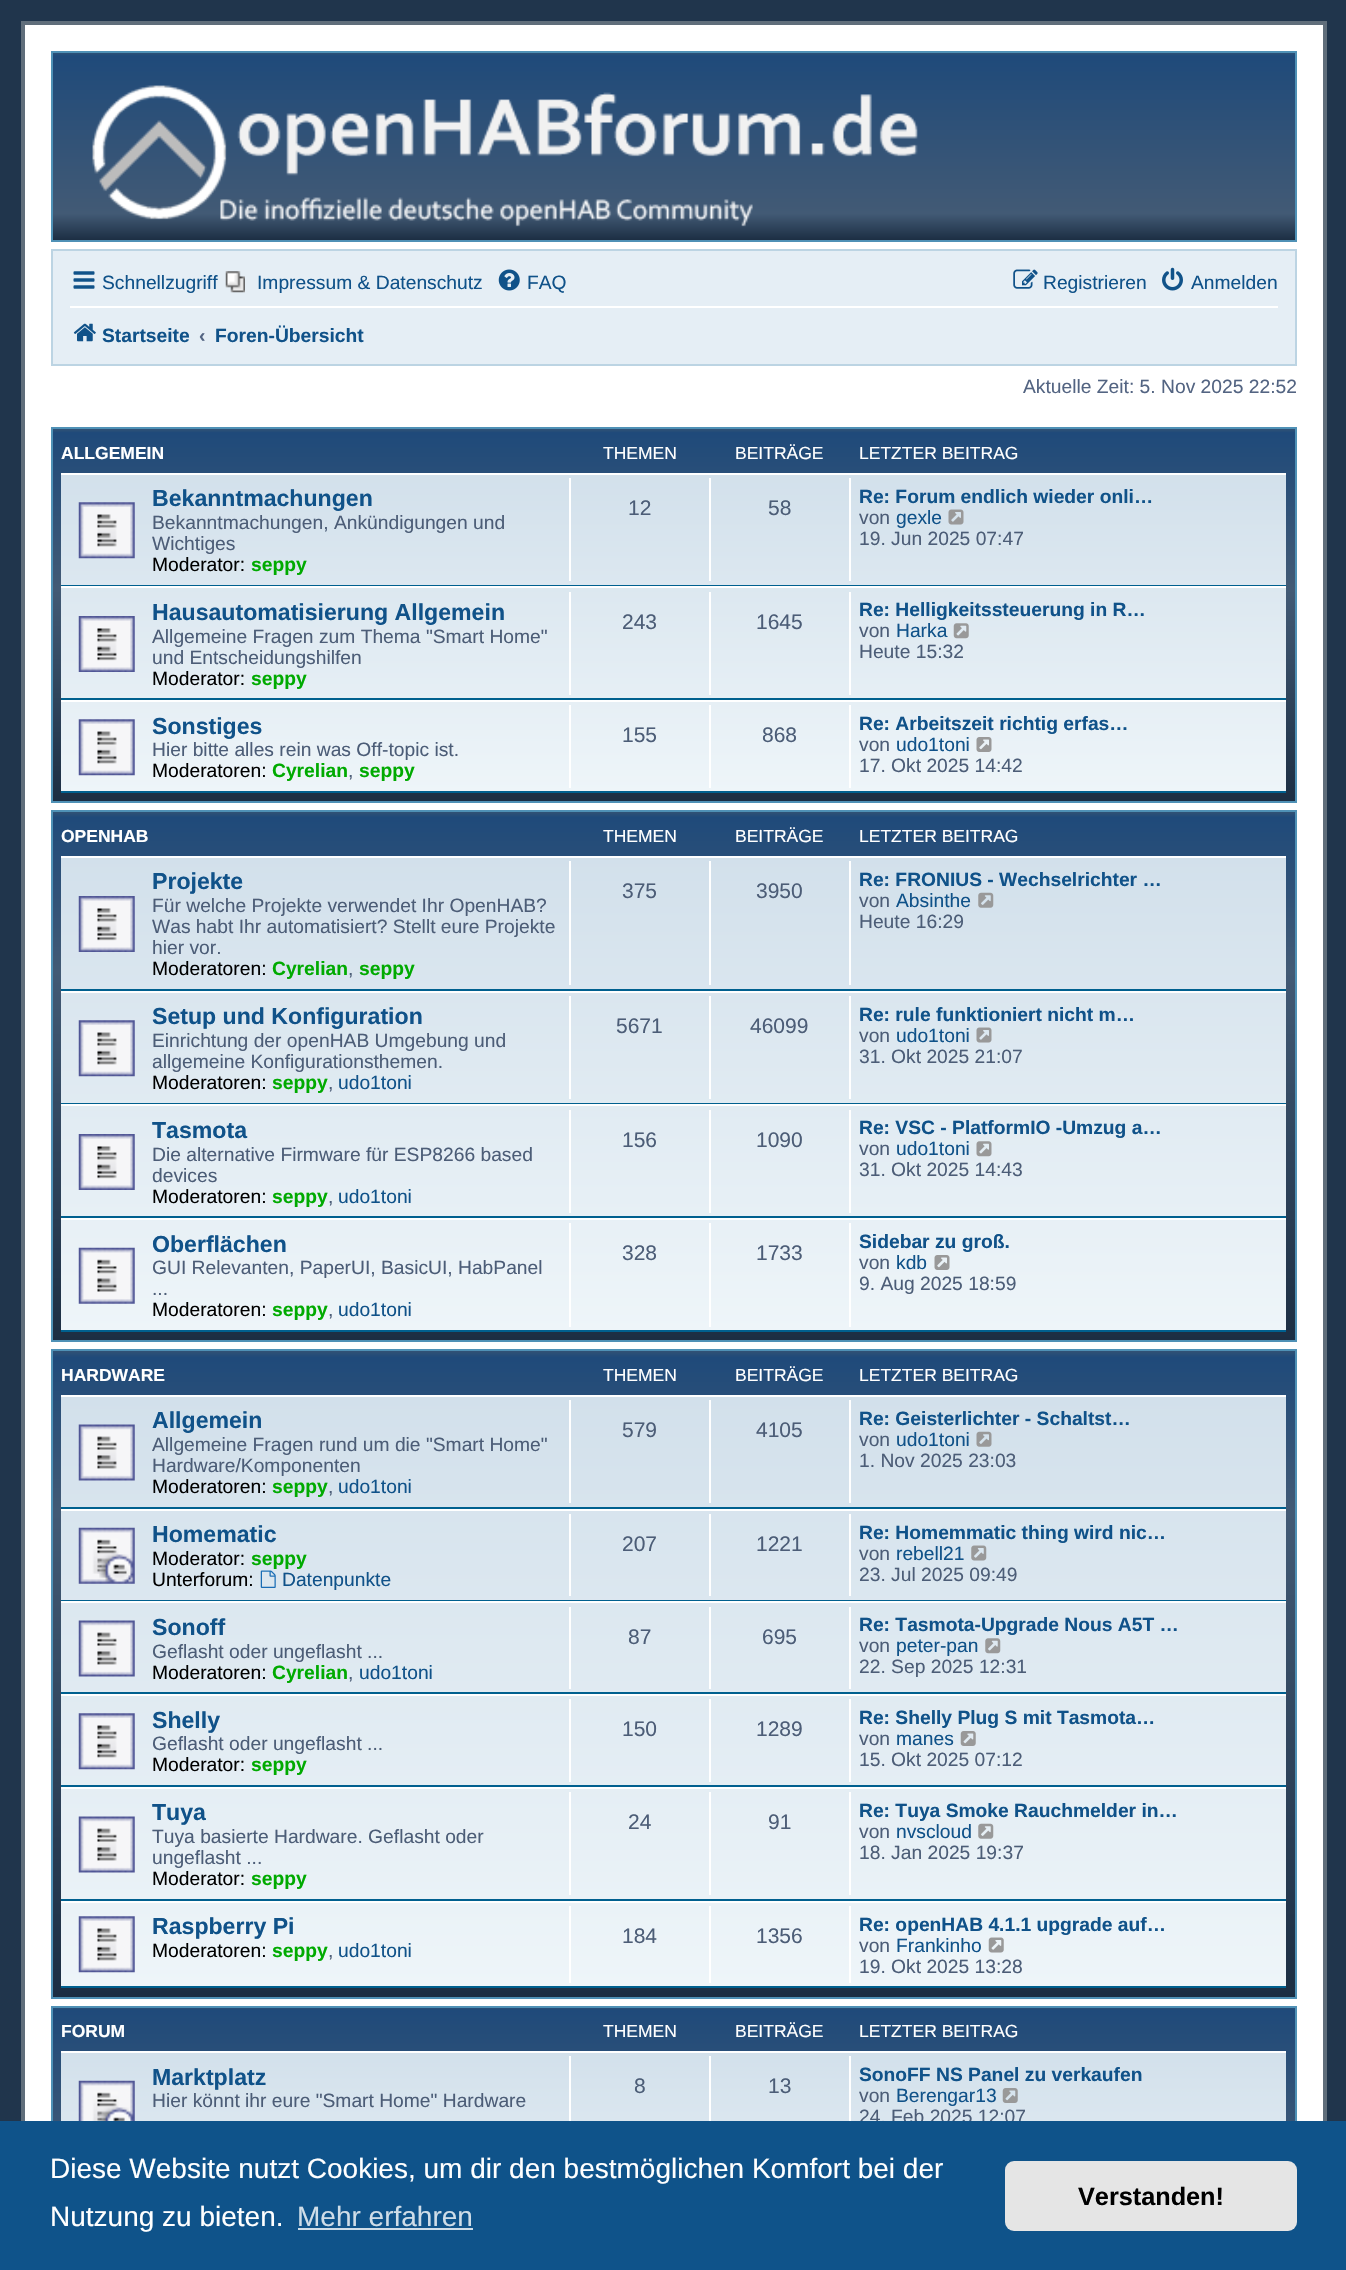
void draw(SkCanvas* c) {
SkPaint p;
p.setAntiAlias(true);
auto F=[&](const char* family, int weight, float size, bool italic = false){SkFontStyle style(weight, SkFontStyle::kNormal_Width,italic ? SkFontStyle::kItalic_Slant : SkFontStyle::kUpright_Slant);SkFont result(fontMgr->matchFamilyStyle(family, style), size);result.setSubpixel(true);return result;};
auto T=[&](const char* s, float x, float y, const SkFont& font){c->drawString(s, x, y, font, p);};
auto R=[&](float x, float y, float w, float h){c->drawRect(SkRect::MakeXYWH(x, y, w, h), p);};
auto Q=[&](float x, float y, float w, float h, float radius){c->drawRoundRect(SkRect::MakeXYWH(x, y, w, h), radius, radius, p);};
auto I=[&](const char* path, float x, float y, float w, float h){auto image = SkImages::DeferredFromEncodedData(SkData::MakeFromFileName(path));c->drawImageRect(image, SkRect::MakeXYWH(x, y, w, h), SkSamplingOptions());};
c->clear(0xff20354c);
p.setColor(0xffffffff);
R(25,25,1298,2096);
p.setStroke(true);
p.setStrokeWidth(4);
p.setColor(0xff606e7b);
c->drawRect(SkRect::MakeXYWH(23,23,1302,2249),p);
p.setStroke(false);
{
const SkColor colors[] = {0xff315275,0xff1f4a7a,0xff425a75,0xff1c2e43};
const float stops[] = {0,.02,.86,1};
const SkPoint ends[] = {{674,52}, {674,240}};
p.setShader(SkGradientShader::MakeLinear(ends, colors, stops, 4, SkTileMode::kClamp));
p.setAlpha(255);
}
R(53,53,1242,187);
p.setStroke(true);
p.setStrokeWidth(2);
p.setShader(nullptr);
p.setColor(0xff4f91b6);
c->drawRect(SkRect::MakeXYWH(52,52,1244,189),p);
I("1.png",92,85,826,142);
p.setStroke(false);
p.setColor(0xffe5eef5);
c->drawRect(SkRect::MakeXYWH(52,250,1244,115),p);
p.setStroke(true);
p.setColor(0xffbcd4e3);
c->drawRect(SkRect::MakeXYWH(52,250,1244,115),p);
I("2.png",73,271,22,18);
auto f1 = F("Liberation Sans",400,19.25);
p.setStroke(false);
p.setColor(0xff105289);
T("Schnellzugriff",102,289,f1);
I("3.png",225,271,20,22);
T("Impressum & Datenschutz",257,289,f1);
I("4.png",498,269,22,22);
T("FAQ",527,289,f1);
I("5.png",1013,269,25,20);
T("Registrieren",1043,289,f1);
I("6.png",1162,267,21,24);
T("Anmelden",1191,289,f1);
p.setColor(0xffffffff);
R(70,306,1208,2);
I("7.png",73,323,23,19);
auto f2 = F("Liberation Sans",700,19.25);
p.setColor(0xff105289);
T("Startseite",102,342,f2);
p.setColor(0xff536482);
T("‹",199,342,f2);
p.setColor(0xff105289);
T("Foren-Übersicht",215,342,f2);
p.setColor(0xff536482);
T("Aktuelle Zeit: 5. Nov 2025 22:52",1023,393,f1);
{
const SkColor colors[] = {0xff315275,0xff1f4a7a,0xff425a75,0xff1c2e43};
const float stops[] = {0,.01,.43,1};
const SkPoint ends[] = {{674,429}, {674,802}};
p.setShader(SkGradientShader::MakeLinear(ends, colors, stops, 4, SkTileMode::kClamp));
p.setAlpha(255);
}
R(53,429,1242,372);
p.setStroke(true);
p.setShader(nullptr);
p.setColor(0xff4f91b6);
c->drawRect(SkRect::MakeXYWH(52,428,1244,374),p);
auto f3 = F("Liberation Sans",700,17.5);
p.setStroke(false);
p.setColor(0xffffffff);
T("ALLGEMEIN",61,459,f3);
auto f4 = F("Liberation Sans",400,17.5);
T("THEMEN",603,459,f4);
T("BEITRÄGE",735,459,f4);
T("LETZTER BEITRAG",859,459,f4);
{
const SkColor colors[] = {0xffd2e0eb,0xffeef5f9};
const float stops[] = {0,1};
const SkPoint ends[] = {{674,472}, {674,793}};
p.setShader(SkGradientShader::MakeLinear(ends, colors, stops, 2, SkTileMode::kClamp));
p.setAlpha(255);
}
R(61,475,1225,316);
p.setShader(nullptr);
p.setColor(0xffffffff);
R(61,473,1225,2);
p.setColor(0xff00608f);
R(61,585,1225,1);
I("8.png",78,502,57,57);
auto f5 = F("Liberation Sans",700,23.1);
p.setColor(0xff105289);
T("Bekanntmachungen",152,506,f5);
p.setColor(0xff4c5d77);
T("Bekanntmachungen, Ankündigungen und",152,529,f1);
T("Wichtiges",152,550,f1);
p.setColor(0xff000000);
T("Moderator:",152,571,f1);
p.setColor(0xff00aa00);
T("seppy",251,571,f2);
p.setColor(0xffffffff);
R(569,478,2,103);
auto f6 = F("Liberation Sans",400,21);
p.setColor(0xff4c5d77);
T("12",628,515,f6);
p.setColor(0xffffffff);
R(709,478,2,103);
p.setColor(0xff4c5d77);
T("58",768,515,f6);
p.setColor(0xffffffff);
R(849,478,2,103);
p.setColor(0xff105289);
T("Re: Forum endlich wieder onli…",859,503,f2);
p.setColor(0xff4c5d77);
T("von",859,524,f1);
p.setColor(0xff105289);
T("gexle",896,524,f1);
I("9.png",948,509,16,16);
p.setColor(0xff4c5d77);
T("19. Jun 2025 07:47",859,545,f1);
p.setColor(0xffffffff);
R(61,586,1225,2);
p.setColor(0xff00608f);
R(61,698,1225,2);
I("10.png",78,616,57,56);
p.setColor(0xff105289);
T("Hausautomatisierung Allgemein",152,620,f5);
p.setColor(0xff4c5d77);
T("Allgemeine Fragen zum Thema \"Smart Home\"",152,643,f1);
T("und Entscheidungshilfen",152,664,f1);
p.setColor(0xff000000);
T("Moderator:",152,685,f1);
p.setColor(0xff00aa00);
T("seppy",251,685,f2);
p.setColor(0xffffffff);
R(569,592,2,103);
p.setColor(0xff4c5d77);
T("243",622,629,f6);
p.setColor(0xffffffff);
R(709,592,2,103);
p.setColor(0xff4c5d77);
T("1645",756,629,f6);
p.setColor(0xffffffff);
R(849,592,2,103);
p.setColor(0xff105289);
T("Re: Helligkeitssteuerung in R…",859,616,f2);
p.setColor(0xff4c5d77);
T("von",859,637,f1);
p.setColor(0xff105289);
T("Harka",896,637,f1);
I("11.png",953,623,16,16);
p.setColor(0xff4c5d77);
T("Heute 15:32",859,658,f1);
p.setColor(0xffffffff);
R(61,700,1225,2);
p.setColor(0xff00608f);
R(61,791,1225,2);
I("12.png",78,719,57,57);
p.setColor(0xff105289);
T("Sonstiges",152,734,f5);
p.setColor(0xff4c5d77);
T("Hier bitte alles rein was Off-topic ist.",152,756,f1);
p.setColor(0xff000000);
T("Moderatoren:",152,777,f1);
p.setColor(0xff00aa00);
T("Cyrelian",272,777,f2);
p.setColor(0xff4c5d77);
T(",",348,777,f1);
p.setColor(0xff00aa00);
T("seppy",359,777,f2);
p.setColor(0xffffffff);
R(569,705,2,83);
p.setColor(0xff4c5d77);
T("155",622,742,f6);
p.setColor(0xffffffff);
R(709,705,2,83);
p.setColor(0xff4c5d77);
T("868",762,742,f6);
p.setColor(0xffffffff);
R(849,705,2,83);
p.setColor(0xff105289);
T("Re: Arbeitszeit richtig erfas…",859,730,f2);
p.setColor(0xff4c5d77);
T("von",859,751,f1);
p.setColor(0xff105289);
T("udo1toni",896,751,f1);
I("13.png",976,737,16,15);
p.setColor(0xff4c5d77);
T("17. Okt 2025 14:42",859,772,f1);
{
const SkColor colors[] = {0xff315275,0xff1f4a7a,0xff425a75,0xff1c2e43};
const float stops[] = {0,.01,.3,1};
const SkPoint ends[] = {{674,812}, {674,1341}};
p.setShader(SkGradientShader::MakeLinear(ends, colors, stops, 4, SkTileMode::kClamp));
p.setAlpha(255);
}
R(53,812,1242,528);
p.setStroke(true);
p.setShader(nullptr);
p.setColor(0xff4f91b6);
c->drawRect(SkRect::MakeXYWH(52,811,1244,530),p);
p.setStroke(false);
p.setColor(0xffffffff);
T("OPENHAB",61,842,f3);
T("THEMEN",603,842,f4);
T("BEITRÄGE",735,842,f4);
T("LETZTER BEITRAG",859,842,f4);
{
const SkColor colors[] = {0xffd2e0eb,0xffeef5f9};
const float stops[] = {0,1};
const SkPoint ends[] = {{674,856}, {674,1332}};
p.setShader(SkGradientShader::MakeLinear(ends, colors, stops, 2, SkTileMode::kClamp));
p.setAlpha(255);
}
R(61,858,1225,472);
p.setShader(nullptr);
p.setColor(0xffffffff);
R(61,856,1225,2);
p.setColor(0xff00608f);
R(61,989,1225,2);
I("14.png",78,896,57,56);
p.setColor(0xff105289);
T("Projekte",152,889,f5);
p.setColor(0xff4c5d77);
T("Für welche Projekte verwendet Ihr OpenHAB?",152,912,f1);
T("Was habt Ihr automatisiert? Stellt eure Projekte",152,933,f1);
T("hier vor.",152,954,f1);
p.setColor(0xff000000);
T("Moderatoren:",152,975,f1);
p.setColor(0xff00aa00);
T("Cyrelian",272,975,f2);
p.setColor(0xff4c5d77);
T(",",348,975,f1);
p.setColor(0xff00aa00);
T("seppy",359,975,f2);
p.setColor(0xffffffff);
R(569,861,2,124);
p.setColor(0xff4c5d77);
T("375",622,898,f6);
p.setColor(0xffffffff);
R(709,861,2,124);
p.setColor(0xff4c5d77);
T("3950",756,898,f6);
p.setColor(0xffffffff);
R(849,861,2,124);
p.setColor(0xff105289);
T("Re: FRONIUS - Wechselrichter …",859,886,f2);
p.setColor(0xff4c5d77);
T("von",859,907,f1);
p.setColor(0xff105289);
T("Absinthe",896,907,f1);
I("15.png",978,892,16,16);
p.setColor(0xff4c5d77);
T("Heute 16:29",859,928,f1);
p.setColor(0xffffffff);
R(61,991,1225,2);
p.setColor(0xff00608f);
R(61,1103,1225,1);
I("16.png",78,1020,57,57);
p.setColor(0xff105289);
T("Setup und Konfiguration",152,1024,f5);
p.setColor(0xff4c5d77);
T("Einrichtung der openHAB Umgebung und",152,1047,f1);
T("allgemeine Konfigurationsthemen.",152,1068,f1);
p.setColor(0xff000000);
T("Moderatoren:",152,1089,f1);
p.setColor(0xff00aa00);
T("seppy",272,1089,f2);
p.setColor(0xff4c5d77);
T(",",328,1089,f1);
p.setColor(0xff105289);
T("udo1toni",338,1089,f1);
p.setColor(0xffffffff);
R(569,996,2,103);
p.setColor(0xff4c5d77);
T("5671",616,1033,f6);
p.setColor(0xffffffff);
R(709,996,2,103);
p.setColor(0xff4c5d77);
T("46099",750,1033,f6);
p.setColor(0xffffffff);
R(849,996,2,103);
p.setColor(0xff105289);
T("Re: rule funktioniert nicht m…",859,1021,f2);
p.setColor(0xff4c5d77);
T("von",859,1042,f1);
p.setColor(0xff105289);
T("udo1toni",896,1042,f1);
I("17.png",976,1027,16,16);
p.setColor(0xff4c5d77);
T("31. Okt 2025 21:07",859,1063,f1);
p.setColor(0xffffffff);
R(61,1104,1225,2);
p.setColor(0xff00608f);
R(61,1216,1225,2);
I("18.png",78,1134,57,56);
p.setColor(0xff105289);
T("Tasmota",152,1138,f5);
p.setColor(0xff4c5d77);
T("Die alternative Firmware für ESP8266 based",152,1161,f1);
T("devices",152,1182,f1);
p.setColor(0xff000000);
T("Moderatoren:",152,1203,f1);
p.setColor(0xff00aa00);
T("seppy",272,1203,f2);
p.setColor(0xff4c5d77);
T(",",328,1203,f1);
p.setColor(0xff105289);
T("udo1toni",338,1203,f1);
p.setColor(0xffffffff);
R(569,1110,2,103);
p.setColor(0xff4c5d77);
T("156",622,1147,f6);
p.setColor(0xffffffff);
R(709,1110,2,103);
p.setColor(0xff4c5d77);
T("1090",756,1147,f6);
p.setColor(0xffffffff);
R(849,1110,2,103);
p.setColor(0xff105289);
T("Re: VSC - PlatformIO -Umzug a…",859,1134,f2);
p.setColor(0xff4c5d77);
T("von",859,1155,f1);
p.setColor(0xff105289);
T("udo1toni",896,1155,f1);
I("19.png",976,1141,16,16);
p.setColor(0xff4c5d77);
T("31. Okt 2025 14:43",859,1176,f1);
p.setColor(0xffffffff);
R(61,1218,1225,2);
p.setColor(0xff00608f);
R(61,1330,1225,2);
I("20.png",78,1247,57,57);
p.setColor(0xff105289);
T("Oberflächen",152,1252,f5);
p.setColor(0xff4c5d77);
T("GUI Relevanten, PaperUI, BasicUI, HabPanel",152,1274,f1);
T("...",152,1295,f1);
p.setColor(0xff000000);
T("Moderatoren:",152,1316,f1);
p.setColor(0xff00aa00);
T("seppy",272,1316,f2);
p.setColor(0xff4c5d77);
T(",",328,1316,f1);
p.setColor(0xff105289);
T("udo1toni",338,1316,f1);
p.setColor(0xffffffff);
R(569,1223,2,104);
p.setColor(0xff4c5d77);
T("328",622,1260,f6);
p.setColor(0xffffffff);
R(709,1223,2,104);
p.setColor(0xff4c5d77);
T("1733",756,1260,f6);
p.setColor(0xffffffff);
R(849,1223,2,104);
p.setColor(0xff105289);
T("Sidebar zu groß.",859,1248,f2);
p.setColor(0xff4c5d77);
T("von",859,1269,f1);
p.setColor(0xff105289);
T("kdb",896,1269,f1);
I("21.png",934,1255,16,15);
p.setColor(0xff4c5d77);
T("9. Aug 2025 18:59",859,1290,f1);
{
const SkColor colors[] = {0xff315275,0xff1f4a7a,0xff425a75,0xff1c2e43};
const float stops[] = {0,.01,.25,1};
const SkPoint ends[] = {{674,1351}, {674,1997}};
p.setShader(SkGradientShader::MakeLinear(ends, colors, stops, 4, SkTileMode::kClamp));
p.setAlpha(255);
}
R(53,1351,1242,646);
p.setStroke(true);
p.setShader(nullptr);
p.setColor(0xff4f91b6);
c->drawRect(SkRect::MakeXYWH(52,1350,1244,648),p);
p.setStroke(false);
p.setColor(0xffffffff);
T("HARDWARE",61,1381,f3);
T("THEMEN",603,1381,f4);
T("BEITRÄGE",735,1381,f4);
T("LETZTER BEITRAG",859,1381,f4);
{
const SkColor colors[] = {0xffd2e0eb,0xffeef5f9};
const float stops[] = {0,1};
const SkPoint ends[] = {{674,1395}, {674,1988}};
p.setShader(SkGradientShader::MakeLinear(ends, colors, stops, 2, SkTileMode::kClamp));
p.setAlpha(255);
}
R(61,1397,1225,589);
p.setShader(nullptr);
p.setColor(0xffffffff);
R(61,1395,1225,2);
p.setColor(0xff00608f);
R(61,1507,1225,2);
I("22.png",78,1424,57,57);
p.setColor(0xff105289);
T("Allgemein",152,1428,f5);
p.setColor(0xff4c5d77);
T("Allgemeine Fragen rund um die \"Smart Home\"",152,1451,f1);
T("Hardware/Komponenten",152,1472,f1);
p.setColor(0xff000000);
T("Moderatoren:",152,1493,f1);
p.setColor(0xff00aa00);
T("seppy",272,1493,f2);
p.setColor(0xff4c5d77);
T(",",328,1493,f1);
p.setColor(0xff105289);
T("udo1toni",338,1493,f1);
p.setColor(0xffffffff);
R(569,1400,2,103);
p.setColor(0xff4c5d77);
T("579",622,1437,f6);
p.setColor(0xffffffff);
R(709,1400,2,103);
p.setColor(0xff4c5d77);
T("4105",756,1437,f6);
p.setColor(0xffffffff);
R(849,1400,2,103);
p.setColor(0xff105289);
T("Re: Geisterlichter - Schaltst…",859,1425,f2);
p.setColor(0xff4c5d77);
T("von",859,1446,f1);
p.setColor(0xff105289);
T("udo1toni",896,1446,f1);
I("23.png",976,1431,16,16);
p.setColor(0xff4c5d77);
T("1. Nov 2025 23:03",859,1467,f1);
p.setColor(0xffffffff);
R(61,1509,1225,2);
p.setColor(0xff00608f);
R(61,1600,1225,1);
I("24.png",78,1527,57,57);
p.setColor(0xff105289);
T("Homematic",152,1542,f5);
p.setColor(0xff000000);
T("Moderator:",152,1565,f1);
p.setColor(0xff00aa00);
T("seppy",251,1565,f2);
p.setColor(0xff000000);
T("Unterforum:",152,1586,f1);
I("25.png",260,1570,16,18);
p.setColor(0xff105289);
T("Datenpunkte",282,1586,f1);
p.setColor(0xffffffff);
R(569,1514,2,82);
p.setColor(0xff4c5d77);
T("207",622,1551,f6);
p.setColor(0xffffffff);
R(709,1514,2,82);
p.setColor(0xff4c5d77);
T("1221",756,1551,f6);
p.setColor(0xffffffff);
R(849,1514,2,82);
p.setColor(0xff105289);
T("Re: Homemmatic thing wird nic…",859,1539,f2);
p.setColor(0xff4c5d77);
T("von",859,1560,f1);
p.setColor(0xff105289);
T("rebell21",896,1560,f1);
I("26.png",971,1545,16,16);
p.setColor(0xff4c5d77);
T("23. Jul 2025 09:49",859,1581,f1);
p.setColor(0xffffffff);
R(61,1601,1225,2);
p.setColor(0xff00608f);
R(61,1692,1225,2);
I("27.png",78,1620,57,57);
p.setColor(0xff105289);
T("Sonoff",152,1635,f5);
p.setColor(0xff4c5d77);
T("Geflasht oder ungeflasht ...",152,1658,f1);
p.setColor(0xff000000);
T("Moderatoren:",152,1679,f1);
p.setColor(0xff00aa00);
T("Cyrelian",272,1679,f2);
p.setColor(0xff4c5d77);
T(",",348,1679,f1);
p.setColor(0xff105289);
T("udo1toni",359,1679,f1);
p.setColor(0xffffffff);
R(569,1607,2,82);
p.setColor(0xff4c5d77);
T("87",628,1644,f6);
p.setColor(0xffffffff);
R(709,1607,2,82);
p.setColor(0xff4c5d77);
T("695",762,1644,f6);
p.setColor(0xffffffff);
R(849,1607,2,82);
p.setColor(0xff105289);
T("Re: Tasmota-Upgrade Nous A5T …",859,1631,f2);
p.setColor(0xff4c5d77);
T("von",859,1652,f1);
p.setColor(0xff105289);
T("peter-pan",896,1652,f1);
I("28.png",985,1638,16,16);
p.setColor(0xff4c5d77);
T("22. Sep 2025 12:31",859,1673,f1);
p.setColor(0xffffffff);
R(61,1694,1225,2);
p.setColor(0xff00608f);
R(61,1785,1225,2);
I("29.png",78,1713,57,57);
p.setColor(0xff105289);
T("Shelly",152,1728,f5);
p.setColor(0xff4c5d77);
T("Geflasht oder ungeflasht ...",152,1750,f1);
p.setColor(0xff000000);
T("Moderator:",152,1771,f1);
p.setColor(0xff00aa00);
T("seppy",251,1771,f2);
p.setColor(0xffffffff);
R(569,1699,2,83);
p.setColor(0xff4c5d77);
T("150",622,1736,f6);
p.setColor(0xffffffff);
R(709,1699,2,83);
p.setColor(0xff4c5d77);
T("1289",756,1736,f6);
p.setColor(0xffffffff);
R(849,1699,2,83);
p.setColor(0xff105289);
T("Re: Shelly Plug S mit Tasmota…",859,1724,f2);
p.setColor(0xff4c5d77);
T("von",859,1745,f1);
p.setColor(0xff105289);
T("manes",896,1745,f1);
I("30.png",960,1731,16,15);
p.setColor(0xff4c5d77);
T("15. Okt 2025 07:12",859,1766,f1);
p.setColor(0xffffffff);
R(61,1787,1225,2);
p.setColor(0xff00608f);
R(61,1899,1225,2);
I("31.png",78,1816,57,57);
p.setColor(0xff105289);
T("Tuya",152,1820,f5);
p.setColor(0xff4c5d77);
T("Tuya basierte Hardware. Geflasht oder",152,1843,f1);
T("ungeflasht ...",152,1864,f1);
p.setColor(0xff000000);
T("Moderator:",152,1885,f1);
p.setColor(0xff00aa00);
T("seppy",251,1885,f2);
p.setColor(0xffffffff);
R(569,1792,2,103);
p.setColor(0xff4c5d77);
T("24",628,1829,f6);
p.setColor(0xffffffff);
R(709,1792,2,103);
p.setColor(0xff4c5d77);
T("91",768,1829,f6);
p.setColor(0xffffffff);
R(849,1792,2,103);
p.setColor(0xff105289);
T("Re: Tuya Smoke Rauchmelder in…",859,1817,f2);
p.setColor(0xff4c5d77);
T("von",859,1838,f1);
p.setColor(0xff105289);
T("nvscloud",896,1838,f1);
I("32.png",978,1823,16,16);
p.setColor(0xff4c5d77);
T("18. Jan 2025 19:37",859,1859,f1);
p.setColor(0xffffffff);
R(61,1901,1225,2);
p.setColor(0xff00608f);
R(61,1986,1225,2);
I("33.png",78,1916,57,57);
p.setColor(0xff105289);
T("Raspberry Pi",152,1934,f5);
p.setColor(0xff000000);
T("Moderatoren:",152,1957,f1);
p.setColor(0xff00aa00);
T("seppy",272,1957,f2);
p.setColor(0xff4c5d77);
T(",",328,1957,f1);
p.setColor(0xff105289);
T("udo1toni",338,1957,f1);
p.setColor(0xffffffff);
R(569,1906,2,77);
p.setColor(0xff4c5d77);
T("184",622,1943,f6);
p.setColor(0xffffffff);
R(709,1906,2,77);
p.setColor(0xff4c5d77);
T("1356",756,1943,f6);
p.setColor(0xffffffff);
R(849,1906,2,77);
p.setColor(0xff105289);
T("Re: openHAB 4.1.1 upgrade auf…",859,1931,f2);
p.setColor(0xff4c5d77);
T("von",859,1952,f1);
p.setColor(0xff105289);
T("Frankinho",896,1952,f1);
I("34.png",988,1937,16,16);
p.setColor(0xff4c5d77);
T("19. Okt 2025 13:28",859,1973,f1);
{
const SkColor colors[] = {0xff315275,0xff1f4a7a,0xff425a75,0xff1c2e43};
const float stops[] = {0,.01,.57,1};
const SkPoint ends[] = {{674,2007}, {674,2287}};
p.setShader(SkGradientShader::MakeLinear(ends, colors, stops, 4, SkTileMode::kClamp));
p.setAlpha(255);
}
R(53,2008,1242,113);
p.setStroke(true);
p.setShader(nullptr);
p.setColor(0xff4f91b6);
c->drawRect(SkRect::MakeXYWH(52,2007,1244,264),p);
p.setStroke(false);
p.setColor(0xffffffff);
T("FORUM",61,2037,f3);
T("THEMEN",603,2037,f4);
T("BEITRÄGE",735,2037,f4);
T("LETZTER BEITRAG",859,2037,f4);
{
const SkColor colors[] = {0xffd2e0eb,0xffeef5f9};
const float stops[] = {0,1};
const SkPoint ends[] = {{674,2051}, {674,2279}};
p.setShader(SkGradientShader::MakeLinear(ends, colors, stops, 2, SkTileMode::kClamp));
p.setAlpha(255);
}
R(61,2053,1225,68);
p.setShader(nullptr);
p.setColor(0xffffffff);
R(61,2051,1225,2);
I("35.png",78,2080,57,41);
p.setColor(0xff105289);
T("Marktplatz",152,2085,f5);
p.setColor(0xff4c5d77);
T("Hier könnt ihr eure \"Smart Home\" Hardware",152,2107,f1);
p.setColor(0xffffffff);
R(569,2056,2,65);
p.setColor(0xff4c5d77);
T("8",634,2093,f6);
p.setColor(0xffffffff);
R(709,2056,2,65);
p.setColor(0xff4c5d77);
T("13",768,2093,f6);
p.setColor(0xffffffff);
R(849,2056,2,65);
p.setColor(0xff105289);
T("SonoFF NS Panel zu verkaufen",859,2081,f2);
p.setColor(0xff4c5d77);
T("von",859,2102,f1);
p.setColor(0xff105289);
T("Berengar13",896,2102,f1);
I("36.png",1002,2088,16,15);
p.setColor(0xff4c5d77);
T("24. Feb 2025 12:07",859,2123,f1);
p.setColor(0xff0f538a);
R(0,2121,1346,149);
auto f7 = F("Liberation Sans",400,28);
p.setColor(0xffffffff);
T("Diese Website nutzt Cookies, um dir den bestmöglichen Komfort bei der",50,2178,f7);
T("Nutzung zu bieten.",50,2226,f7);
p.setColor(0xffcfdde8);
T("Mehr erfahren",297,2226,f7);
R(298,2228,175,2);
p.setColor(0xffe5e5e5);
Q(1005,2161,292,70,9);
auto f8 = F("Liberation Sans",700,25.25);
p.setColor(0xff000000);
T("Verstanden!",1078,2205,f8);
}
